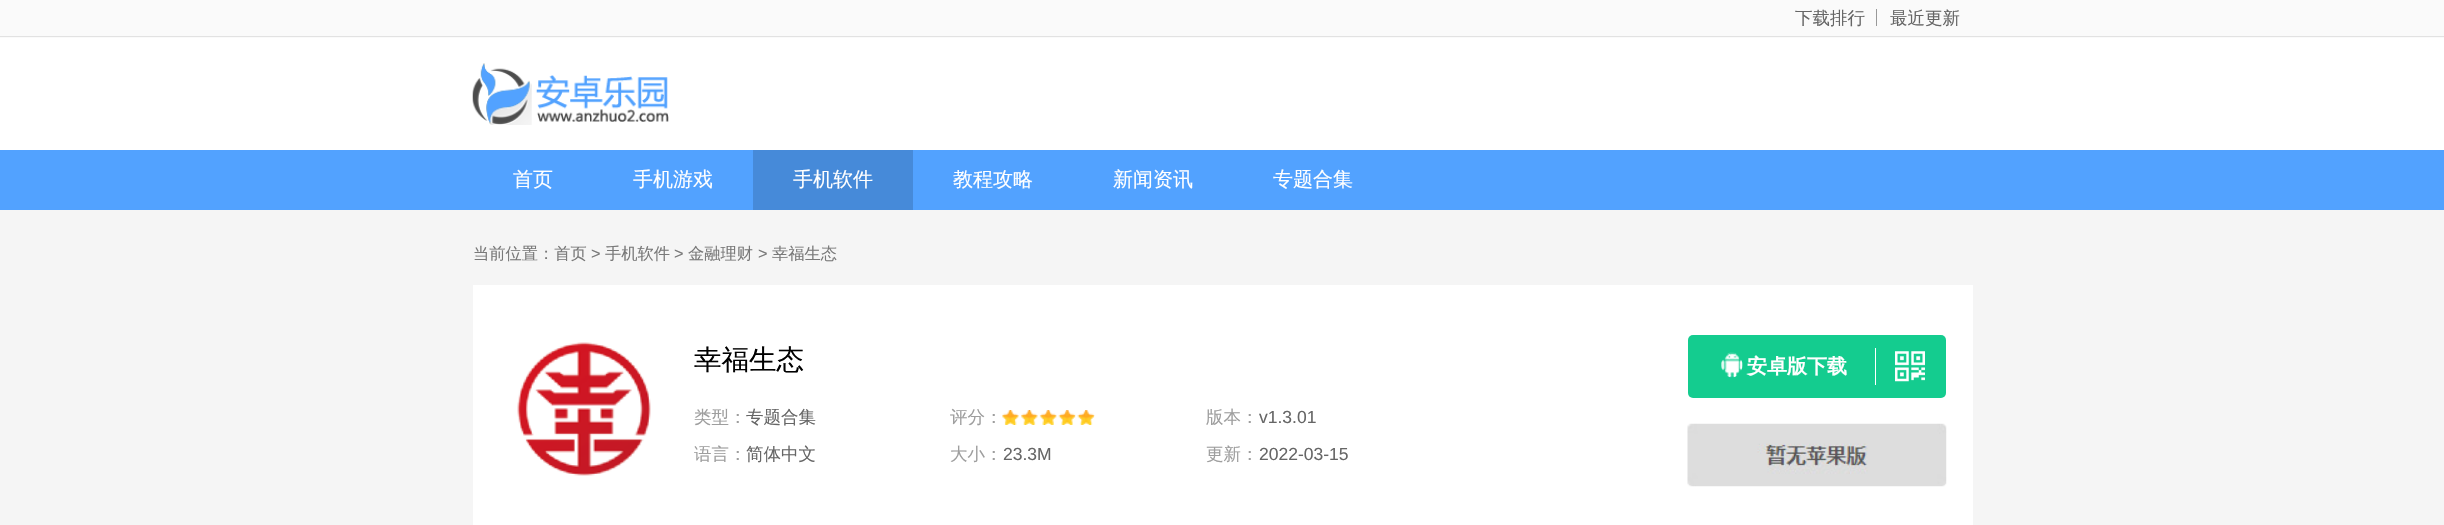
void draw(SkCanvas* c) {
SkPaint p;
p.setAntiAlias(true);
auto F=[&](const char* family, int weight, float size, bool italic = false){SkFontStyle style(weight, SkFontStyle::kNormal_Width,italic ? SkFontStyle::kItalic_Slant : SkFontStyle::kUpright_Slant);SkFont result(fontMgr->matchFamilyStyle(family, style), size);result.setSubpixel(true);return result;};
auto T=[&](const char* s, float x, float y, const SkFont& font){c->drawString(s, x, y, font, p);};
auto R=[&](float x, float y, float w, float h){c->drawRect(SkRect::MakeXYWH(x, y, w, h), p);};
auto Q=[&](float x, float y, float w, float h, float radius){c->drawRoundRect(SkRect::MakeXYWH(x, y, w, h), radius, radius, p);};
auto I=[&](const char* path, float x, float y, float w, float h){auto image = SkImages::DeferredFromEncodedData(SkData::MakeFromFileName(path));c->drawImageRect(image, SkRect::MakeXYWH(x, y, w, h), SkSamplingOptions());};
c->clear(0xfff5f5f5);
p.setColor(0xfffafafa);
R(0,0,2444,38);
p.setColor(0xffe2e2e2);
R(0,36,2444,1);
auto f1 = F("WenQuanYi Zen Hei",500,17.5);
p.setColor(0xff666666);
T("下载排行",1795,24,f1);
p.setColor(0xff999999);
R(1876,9,1,17);
p.setColor(0xff666666);
T("最近更新",1890,24,f1);
p.setColor(0xffffffff);
R(0,38,2444,112);
I("1.png",472,63,197,62);
p.setColor(0xff52a2ff);
R(0,150,2444,60);
auto f2 = F("WenQuanYi Zen Hei",500,20);
p.setColor(0xffffffff);
T("首页",513,186,f2);
T("手机游戏",633,186,f2);
p.setColor(0xff468ad9);
R(753,150,160,60);
p.setColor(0xffffffff);
T("手机软件",793,186,f2);
T("教程攻略",953,186,f2);
T("新闻资讯",1113,186,f2);
T("专题合集",1273,186,f2);
auto f3 = F("WenQuanYi Zen Hei",500,16.25);
p.setColor(0xff797979);
T("当前位置：首页",473,259,f3);
auto f4 = F("Liberation Sans",400,16.25);
T(">",591,259,f4);
T("手机软件",605,259,f3);
T(">",674,259,f4);
T("金融理财",688,259,f3);
T(">",758,259,f4);
T("幸福生态",772,259,f3);
p.setColor(0xffffffff);
R(473,285,1500,240);
I("2.png",517,342,134,134);
auto f5 = F("WenQuanYi Zen Hei",500,27.5);
p.setColor(0xff000000);
T("幸福生态",694,369,f5);
p.setColor(0xff9e9e9e);
T("类型：",694,423,f1);
p.setColor(0xff666666);
T("专题合集",746,423,f1);
p.setColor(0xff9e9e9e);
T("评分：",950,423,f1);
I("3.png",1002,410,93,15);
T("版本：",1206,423,f1);
auto f6 = F("Liberation Sans",400,17.5);
p.setColor(0xff666666);
T("v1.3.01",1259,423,f6);
p.setColor(0xff9e9e9e);
T("语言：",694,460,f1);
p.setColor(0xff666666);
T("简体中文",746,460,f1);
p.setColor(0xff9e9e9e);
T("大小：",950,460,f1);
p.setColor(0xff666666);
T("23.3M",1003,460,f6);
p.setColor(0xff9e9e9e);
T("更新：",1206,460,f1);
p.setColor(0xff666666);
T("2022-03-15",1259,460,f6);
p.setColor(0xff14cc8f);
Q(1688,335,258,63,5);
I("4.png",1721,352,22,26);
auto f7 = F("WenQuanYi Zen Hei",700,20);
p.setColor(0xffffffff);
T("安卓版下载",1747,373,f7);
R(1875,348,1,37);
I("5.png",1895,351,30,31);
I("6.png",1687,423,260,64);
}
